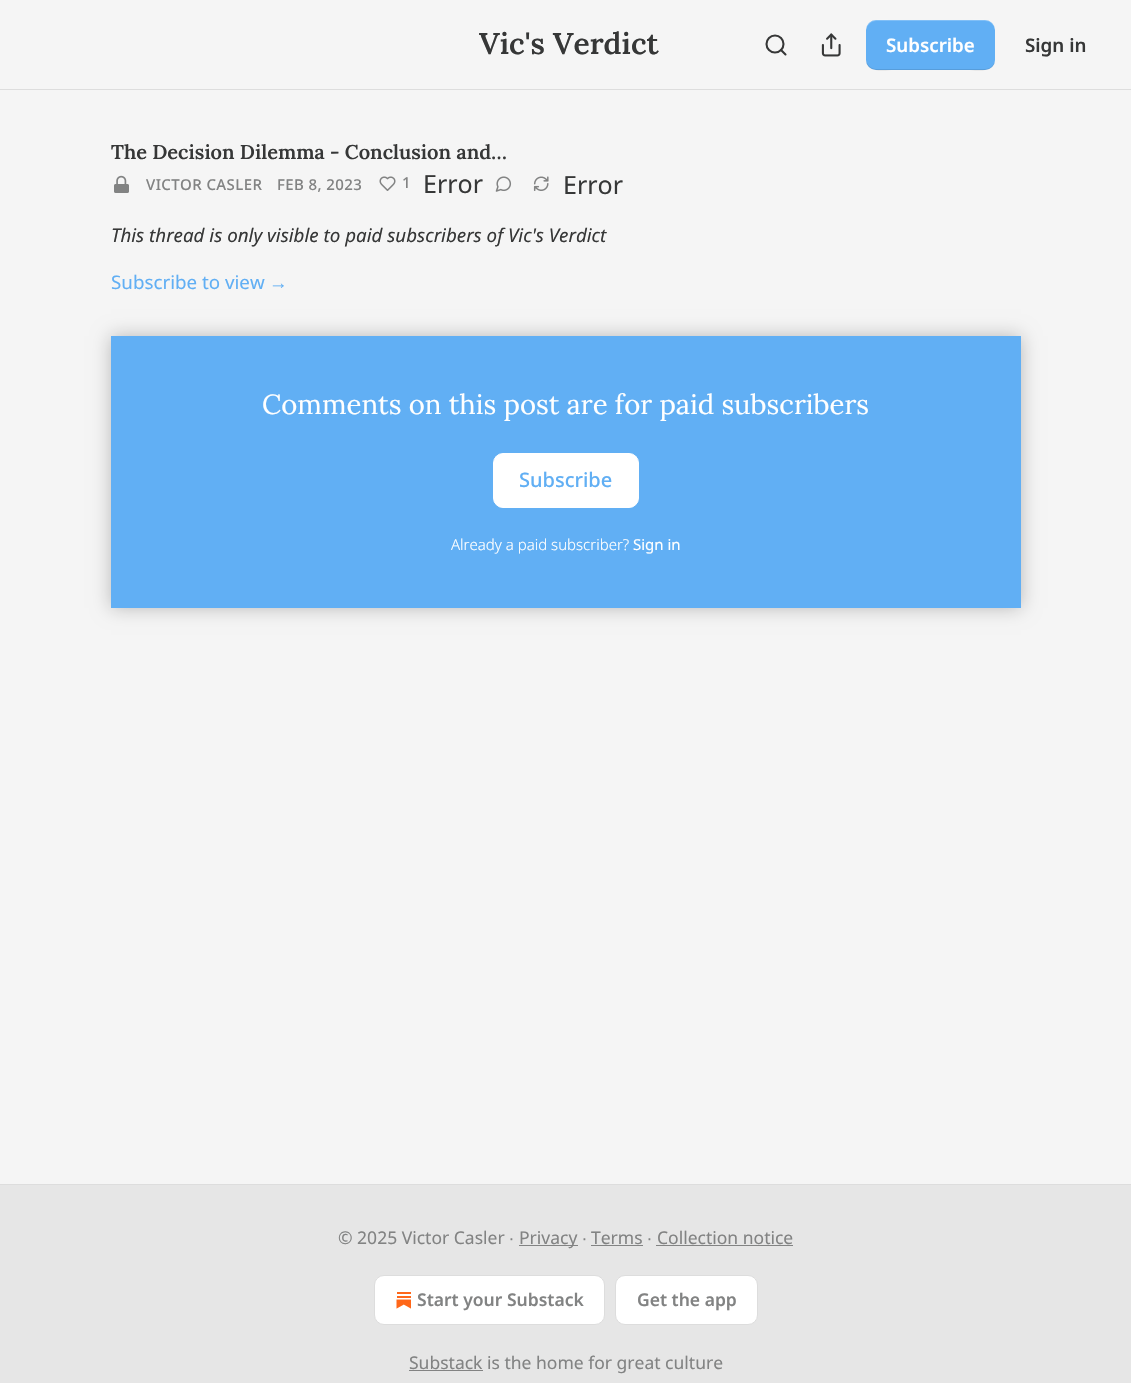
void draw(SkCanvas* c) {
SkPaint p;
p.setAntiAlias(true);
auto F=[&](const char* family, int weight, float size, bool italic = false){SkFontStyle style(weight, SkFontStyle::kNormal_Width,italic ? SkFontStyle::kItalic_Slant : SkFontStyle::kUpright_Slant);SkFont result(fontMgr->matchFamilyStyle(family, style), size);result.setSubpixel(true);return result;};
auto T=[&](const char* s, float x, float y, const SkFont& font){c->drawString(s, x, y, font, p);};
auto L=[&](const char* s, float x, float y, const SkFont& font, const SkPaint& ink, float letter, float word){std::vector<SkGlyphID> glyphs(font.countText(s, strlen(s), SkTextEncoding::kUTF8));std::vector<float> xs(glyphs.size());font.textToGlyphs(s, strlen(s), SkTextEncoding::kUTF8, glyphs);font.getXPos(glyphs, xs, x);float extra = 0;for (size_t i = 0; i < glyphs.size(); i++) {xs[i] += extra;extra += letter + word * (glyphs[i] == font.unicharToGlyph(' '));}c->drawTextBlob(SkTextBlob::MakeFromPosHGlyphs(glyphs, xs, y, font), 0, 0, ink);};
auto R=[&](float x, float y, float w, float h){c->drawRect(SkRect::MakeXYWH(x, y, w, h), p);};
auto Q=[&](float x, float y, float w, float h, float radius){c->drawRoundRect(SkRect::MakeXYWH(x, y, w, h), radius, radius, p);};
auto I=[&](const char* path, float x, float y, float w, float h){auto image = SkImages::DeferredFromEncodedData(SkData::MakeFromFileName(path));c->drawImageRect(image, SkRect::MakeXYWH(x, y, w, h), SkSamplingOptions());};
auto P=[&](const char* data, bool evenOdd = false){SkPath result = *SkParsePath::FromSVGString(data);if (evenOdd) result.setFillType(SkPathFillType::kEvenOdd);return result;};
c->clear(0xfff5f5f5);
p.setColor(0xffdddddd);
R(0,89,1131,1);
auto f1 = F("Lora",600,30);
p.setColor(0xff363737);
T("Vic's Verdict",479,54,f1);
p.setStroke(true);
p.setStrokeWidth(2.1);
c->drawCircle(775,44,8.5,p);
p.setStrokeCap(SkPaint::kRound_Cap);
p.setStrokeJoin(SkPaint::kRound_Join);
c->drawPath(P("M785.5 54.5l-4.5-4.5"),p);
I("1.png",821,33,20,24);
p.setStroke(false);
p.setColor(0xff61aff4);
Q(866,20,129,50,10);
p.setColor(0x1a000000);
c->drawPath(P("M866 59c0 15 18 11 28 11h73c10 0 28 4 28-11c0 5-4 10-10 10h-109c-5 0-10-5-10-10z"),p);
p.setColor(0x33ffffff);
c->drawPath(P("M876 21h109c6 0 10 5 10 10c0-15-18-11-28-11h-73c-10 0-28-4-28 11c0-5 5-10 10-10z"),p);
auto f2 = F("Noto Sans",600,18.75);
p.setColor(0xffffffff);
T("Subscribe",886,52,f2);
p.setColor(0xff363737);
T("Sign in",1025,52,f2);
auto f3 = F("Lora",600,20);
T("The Decision Dilemma - Conclusion and…",111,159,f3);
I("2.png",114,175,15,18);
auto f4 = F("Noto Sans",500,15);
p.setColor(0xff828383);
L("VICTOR CASLER",146,190,f4,p,.4,0);
L("FEB 8, 2023",277,190,f4,p,.4,0);
I("3.png",379,176,17,15);
L("1",402,188,f4,p,.4,0);
auto f5 = F("Noto Sans",400,25);
p.setColor(0xff363737);
T("Error",423,193,f5);
I("4.png",495,176,17,16);
I("5.png",533,176,16,15);
T("Error",563,194,f5);
auto f6 = F("Noto Sans",400,18.75,true);
T("This thread is only visible to paid subscribers of Vic's Verdict",111,242,f6);
auto f7 = F("Noto Sans",400,18.75);
p.setColor(0xff61aff4);
T("Subscribe to view",111,289,f7);
auto f8 = F("Liberation Sans",400,18.75);
T("→",269,289,f8);
R(111,336,910,272);
p.setColor(0xffffffff);
c->drawRoundRect(SkRect::MakeXYWH(493.5,453.5,145,54),9.5,9.5,p);
p.setStroke(true);
p.setStrokeWidth(1);
p.setStrokeCap(SkPaint::kButt_Cap);
p.setStrokeJoin(SkPaint::kMiter_Join);
c->drawRoundRect(SkRect::MakeXYWH(493.5,453.5,145,54),9.5,9.5,p);
c->save();
c->clipPath(P("M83 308h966v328h-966zm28 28h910v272h-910z",true),true);
p.setStroke(false);
p.setColor(0x40000000);
p.setMaskFilter(SkMaskFilter::MakeBlur(kNormal_SkBlurStyle, 9));
c->drawRect(SkRect::MakeXYWH(111,336,910,272),p);
p.setMaskFilter(nullptr);
c->restore();
auto f9 = F("Lora",400,27.5);
p.setColor(0xffffffff);
T("Comments on this post are for paid subscribers",262,414,f9);
auto f10 = F("Noto Sans",500,20);
p.setColor(0xff61aff4);
T("Subscribe",519,487,f10);
auto f11 = F("Noto Sans",300,15);
p.setColor(0xffffffff);
T("Already a paid subscriber?",451,550,f11);
auto f12 = F("Noto Sans",400,15);
T("Sign in",633,550,f12);
p.setColor(0xffe6e6e6);
R(0,1185,1131,198);
p.setColor(0xffdddddd);
R(0,1184,1131,1);
auto f13 = F("Noto Sans",400,17.5);
p.setColor(0xff828383);
T("© 2025 Victor Casler",338,1244,f13);
auto f14 = F("Liberation Sans",400,17.5);
T("∙",509,1244,f14);
R(519,1245,59,1);
T("Privacy",519,1244,f13);
T("∙",582,1244,f14);
T("Terms",591,1244,f13);
R(591,1245,52,1);
T("∙",647,1244,f14);
T("Collection notice",657,1244,f13);
R(656,1245,137,1);
p.setColor(0xffffffff);
c->drawRoundRect(SkRect::MakeXYWH(374.5,1275.5,230,49),9.5,9.5,p);
p.setStroke(true);
p.setColor(0xffdddddd);
c->drawRoundRect(SkRect::MakeXYWH(374.5,1275.5,230,49),9.5,9.5,p);
I("6.png",396,1292,15,17);
auto f15 = F("Noto Sans",600,17.5);
p.setStroke(false);
p.setColor(0xff828383);
T("Start your Substack",417,1306,f15);
p.setColor(0xffffffff);
c->drawRoundRect(SkRect::MakeXYWH(615.5,1275.5,142,49),9.5,9.5,p);
p.setStroke(true);
p.setColor(0xffdddddd);
c->drawRoundRect(SkRect::MakeXYWH(615.5,1275.5,142,49),9.5,9.5,p);
p.setStroke(false);
p.setColor(0xff828383);
T("Get the app",637,1306,f15);
R(409,1370,74,1);
T("Substack is the home for great culture",409,1369,f13);
}
